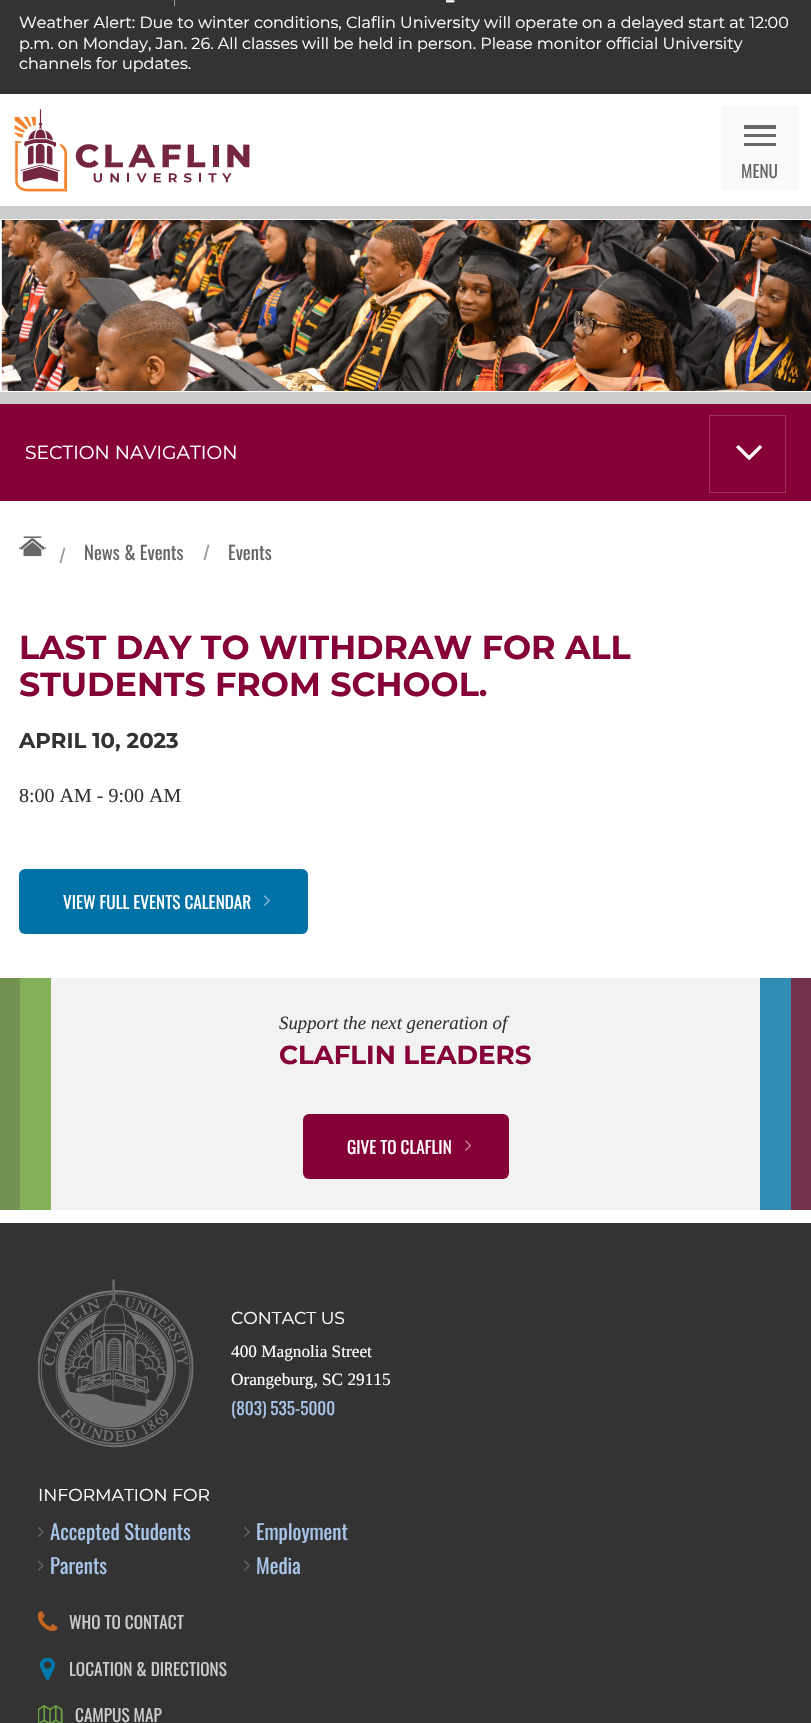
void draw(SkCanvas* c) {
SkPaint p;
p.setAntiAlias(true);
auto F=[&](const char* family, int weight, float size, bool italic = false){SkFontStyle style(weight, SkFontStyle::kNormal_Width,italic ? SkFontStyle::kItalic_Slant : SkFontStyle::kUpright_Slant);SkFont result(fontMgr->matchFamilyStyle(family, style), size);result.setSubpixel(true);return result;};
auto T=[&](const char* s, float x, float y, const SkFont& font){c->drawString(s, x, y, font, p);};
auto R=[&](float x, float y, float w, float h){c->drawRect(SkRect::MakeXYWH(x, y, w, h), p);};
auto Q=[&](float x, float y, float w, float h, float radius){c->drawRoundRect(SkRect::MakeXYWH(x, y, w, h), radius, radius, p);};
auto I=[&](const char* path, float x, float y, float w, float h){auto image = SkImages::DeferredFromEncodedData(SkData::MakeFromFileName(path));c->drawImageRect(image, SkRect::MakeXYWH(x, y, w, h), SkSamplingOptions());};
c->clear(0xffffffff);
p.setColor(0xff333333);
R(0,0,811,94);
p.setColor(0xff999999);
R(174,0,1,6);
auto f1 = F("Oswald",400,24);
p.setColor(0xffffffff);
T("_",446,-1,f1);
auto f2 = F("Montserrat",400,16);
T("Weather Alert: Due to winter conditions, Claflin University will operate on a delayed start at 12:00",19,28,f2);
T("p.m. on Monday, Jan. 26. All classes will be held in person. Please monitor official University",19,49,f2);
T("channels for updates.",19,69,f2);
I("1.png",14,109,236,83);
p.setColor(0xfff9f9f9);
R(721,106,78,84);
p.setColor(0xff666766);
R(744,134,32,3);
R(744,125,32,4);
R(744,143,32,3);
auto f3 = F("Oswald",400,17.25);
p.setColor(0xff666666);
T("MENU",741,178,f3);
p.setColor(0xffcccccc);
R(0,206,811,13);
R(0,392,811,12);
I("2.png",0,220,811,171);
p.setColor(0xff860038);
R(0,404,811,97);
auto f4 = F("Montserrat",400,18.75);
p.setColor(0xffffffff);
T("SECTION NAVIGATION",25,459,f4);
p.setStroke(true);
p.setStrokeWidth(1);
p.setColor(0xff9e3360);
c->drawRect(SkRect::MakeXYWH(709.5,415.5,76,77),p);
I("3.png",736,445,26,15);
I("4.png",18,536,29,21);
auto f5 = F("Oswald",400,18.75);
p.setStroke(false);
p.setColor(0xff999999);
T("/",59,563,f5);
p.setColor(0xff666666);
T("News & Events",84,560,f5);
p.setColor(0xff999999);
T("/",203,560,f5);
p.setColor(0xff666666);
T("Events",228,560,f5);
auto f6 = F("Montserrat",700,33.3);
p.setColor(0xff860038);
T("LAST DAY TO WITHDRAW FOR ALL",19,659,f6);
T("STUDENTS FROM SCHOOL.",19,696,f6);
auto f7 = F("Montserrat",700,21.25);
p.setColor(0xff333333);
T("APRIL 10, 2023",19,748,f7);
auto f8 = F("Liberation Serif",400,20);
T("8:00 AM - 9:00 AM",19,802,f8);
p.setColor(0xff0172a5);
Q(19,869,289,65,6);
p.setColor(0xffffffff);
T("VIEW FULL EVENTS CALENDAR",63,909,f3);
I("5.png",264,895,6,11);
p.setColor(0xfff2f2f2);
R(51,978,709,232);
p.setColor(0xff719250);
R(0,978,20,232);
p.setColor(0xff85b05a);
R(20,978,31,232);
auto f9 = F("Liberation Serif",400,18.75,true);
p.setColor(0xff333333);
T("Support the next generation of",279,1029,f9);
auto f10 = F("Montserrat",700,26.1);
p.setColor(0xff860038);
T("CLAFLIN LEADERS",279,1064,f10);
Q(303,1114,206,65,6);
p.setColor(0xffffffff);
T("GIVE TO CLAFLIN",347,1154,f3);
I("6.png",465,1140,6,11);
p.setColor(0xff318cb4);
R(760,978,31,232);
p.setColor(0xff73304c);
R(791,978,20,232);
p.setColor(0xff333333);
R(0,1223,811,500);
I("7.png",38,1279,156,169);
auto f11 = F("Montserrat",400,17.25);
p.setColor(0xffffffff);
T("CONTACT US",231,1324,f11);
auto f12 = F("Liberation Serif",400,17.25);
T("400 Magnolia Street",231,1357,f12);
T("Orangeburg, SC 29115",231,1385,f12);
p.setColor(0xffa8c6ec);
T("(803) 535-5000",231,1415,f3);
p.setColor(0xffffffff);
T("INFORMATION FOR",38,1501,f11);
I("8.png",38,1526,6,12);
auto f13 = F("Oswald",400,20.75);
p.setColor(0xffa8c6ec);
T("Accepted Students",50,1540,f13);
I("9.png",244,1526,6,12);
T("Employment",256,1540,f13);
I("10.png",38,1560,6,11);
T("Parents",50,1574,f13);
I("11.png",244,1560,6,11);
T("Media",256,1574,f13);
I("12.png",38,1611,20,20);
p.setColor(0xffcccccc);
T("WHO TO CONTACT",69,1629,f3);
I("13.png",40,1658,15,22);
T("LOCATION & DIRECTIONS",69,1676,f3);
I("14.png",38,1705,25,18);
T("CAMPUS MAP",75,1722,f3);
}
